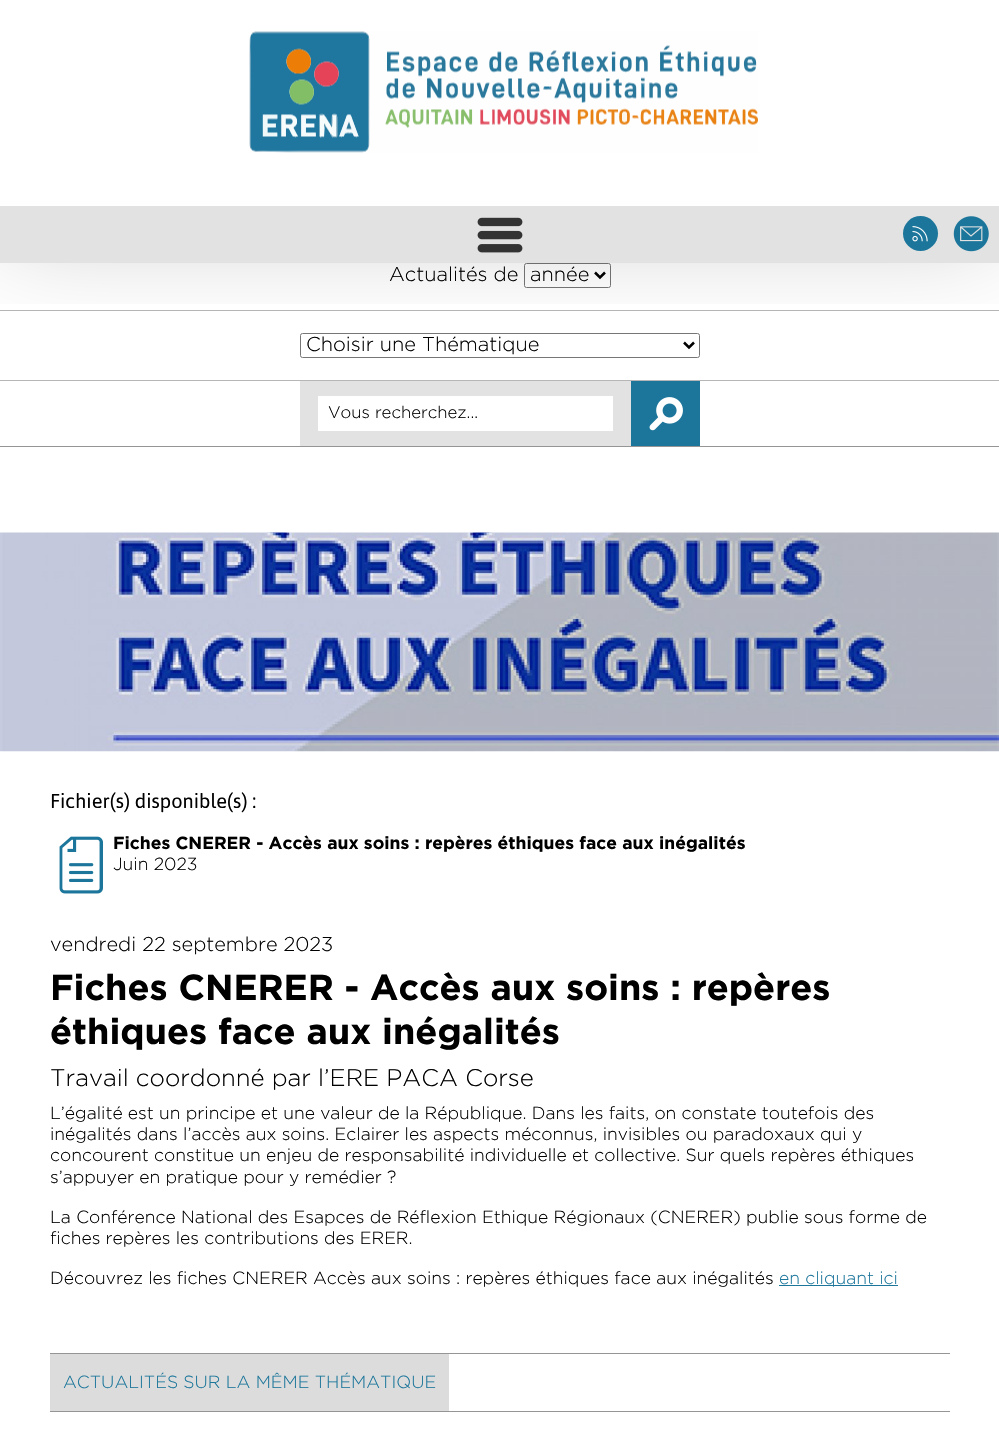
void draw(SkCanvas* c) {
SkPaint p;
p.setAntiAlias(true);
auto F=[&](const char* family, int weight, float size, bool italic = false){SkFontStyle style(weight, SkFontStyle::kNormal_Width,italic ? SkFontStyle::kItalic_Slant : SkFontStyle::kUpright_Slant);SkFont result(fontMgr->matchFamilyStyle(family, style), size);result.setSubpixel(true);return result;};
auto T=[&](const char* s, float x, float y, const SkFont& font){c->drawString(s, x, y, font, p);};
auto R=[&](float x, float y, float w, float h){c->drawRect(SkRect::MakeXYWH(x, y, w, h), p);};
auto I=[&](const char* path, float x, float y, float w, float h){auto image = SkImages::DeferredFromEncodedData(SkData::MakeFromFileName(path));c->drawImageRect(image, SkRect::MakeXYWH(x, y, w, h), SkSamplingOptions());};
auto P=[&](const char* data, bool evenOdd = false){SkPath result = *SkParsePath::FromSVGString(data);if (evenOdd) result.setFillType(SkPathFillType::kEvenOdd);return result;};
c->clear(0xffffffff);
p.setColor(0xffb6b6b6);
R(0,310,999,1);
p.setStroke(true);
p.setStrokeWidth(1);
p.setColor(0xff767676);
c->drawRoundRect(SkRect::MakeXYWH(524.5,263.5,86,24),2,2,p);
p.setStrokeWidth(2.5);
p.setColor(0xff000000);
c->drawPath(P("M595 272.5l5 5l5-5"),p);
p.setStroke(false);
p.setColor(0xffb6b6b6);
R(0,380,999,1);
p.setStroke(true);
p.setStrokeWidth(1);
p.setColor(0xff767676);
c->drawRoundRect(SkRect::MakeXYWH(300.5,333.5,399,24),2,2,p);
p.setStrokeWidth(2.5);
p.setColor(0xff000000);
c->drawPath(P("M684 342.5l5 5l5-5"),p);
p.setStroke(false);
p.setColor(0xffe2e2e2);
R(300,381,331,65);
p.setColor(0xff1c769b);
R(631,381,69,65);
c->save();
c->clipRect(SkRect::MakeXYWH(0,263,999,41));
p.setColor(0x33000000);
p.setMaskFilter(SkMaskFilter::MakeBlur(kNormal_SkBlurStyle, 50));
c->drawRect(SkRect::MakeXYWH(0,0,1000,240),p);
p.setMaskFilter(nullptr);
c->restore();
I("1.png",249,31,509,122);
p.setColor(0xffe2e2e2);
R(0,206,999,57);
I("2.png",477,217,46,36);
p.setColor(0xff1c769b);
c->drawCircle(920.5,233.5,17.5,p);
I("3.png",912,226,16,16);
I("4.png",953,216,36,36);
p.setColor(0xff959595);
R(0,446,999,1);
auto f1 = F("Gotham",300,20);
p.setColor(0xff000000);
T("Actualités de",389,281,f1);
T("année",530,281,f1);
T("Choisir une Thématique",306,351,f1);
p.setColor(0xffffffff);
R(318,396,295,35);
auto f2 = F("Gotham",300,16.75);
p.setColor(0xff000000);
T("Vous recherchez...",328,418,f2);
I("5.png",649,397,34,34);
I("6.png",0,532,999,220);
auto f3 = F("Asap",400,20);
T("Fichier(s) disponible(s) :",50,808,f3);
I("7.png",59,836,44,58);
auto f4 = F("Gotham",700,17.5);
T("Fiches CNERER - Accès aux soins : repères éthiques face aux inégalités",113,849,f4);
auto f5 = F("Gotham",300,17.5);
T("Juin 2023",113,870,f5);
auto f6 = F("Gotham",300,19.9);
T("vendredi 22 septembre 2023",50,951,f6);
auto f7 = F("Gotham",700,36);
T("Fiches CNERER - Accès aux soins : repères",50,1000,f7);
T("éthiques face aux inégalités",50,1044,f7);
auto f8 = F("Gotham",300,24);
T("Travail coordonné par l’ERE PACA Corse",50,1086,f8);
T("L’égalité est un principe et une valeur de la République. Dans les faits, on constate toutefois des",50,1119,f5);
T("inégalités dans l’accès aux soins. Eclairer les aspects méconnus, invisibles ou paradoxaux qui y",50,1140,f5);
T("concourent constitue un enjeu de responsabilité individuelle et collective. Sur quels repères éthiques",50,1161,f5);
T("s’appuyer en pratique pour y remédier ?",50,1183,f5);
T("La Conférence National des Esapces de Réflexion Ethique Régionaux (CNERER) publie sous forme de",50,1223,f5);
T("fiches repères les contributions des ERER.",50,1244,f5);
T("Découvrez les fiches CNERER Accès aux soins : repères éthiques face aux inégalités",50,1284,f5);
p.setColor(0xff1c769b);
R(779,1285,119,1);
T("en cliquant ici",779,1284,f5);
p.setColor(0xff959595);
R(50,1353,900,1);
R(50,1411,900,1);
p.setColor(0xffdcdcdc);
R(50,1354,399,57);
p.setColor(0xff1c769b);
T("ACTUALITÉS SUR LA MÊME THÉMATIQUE",63,1388,f5);
}
